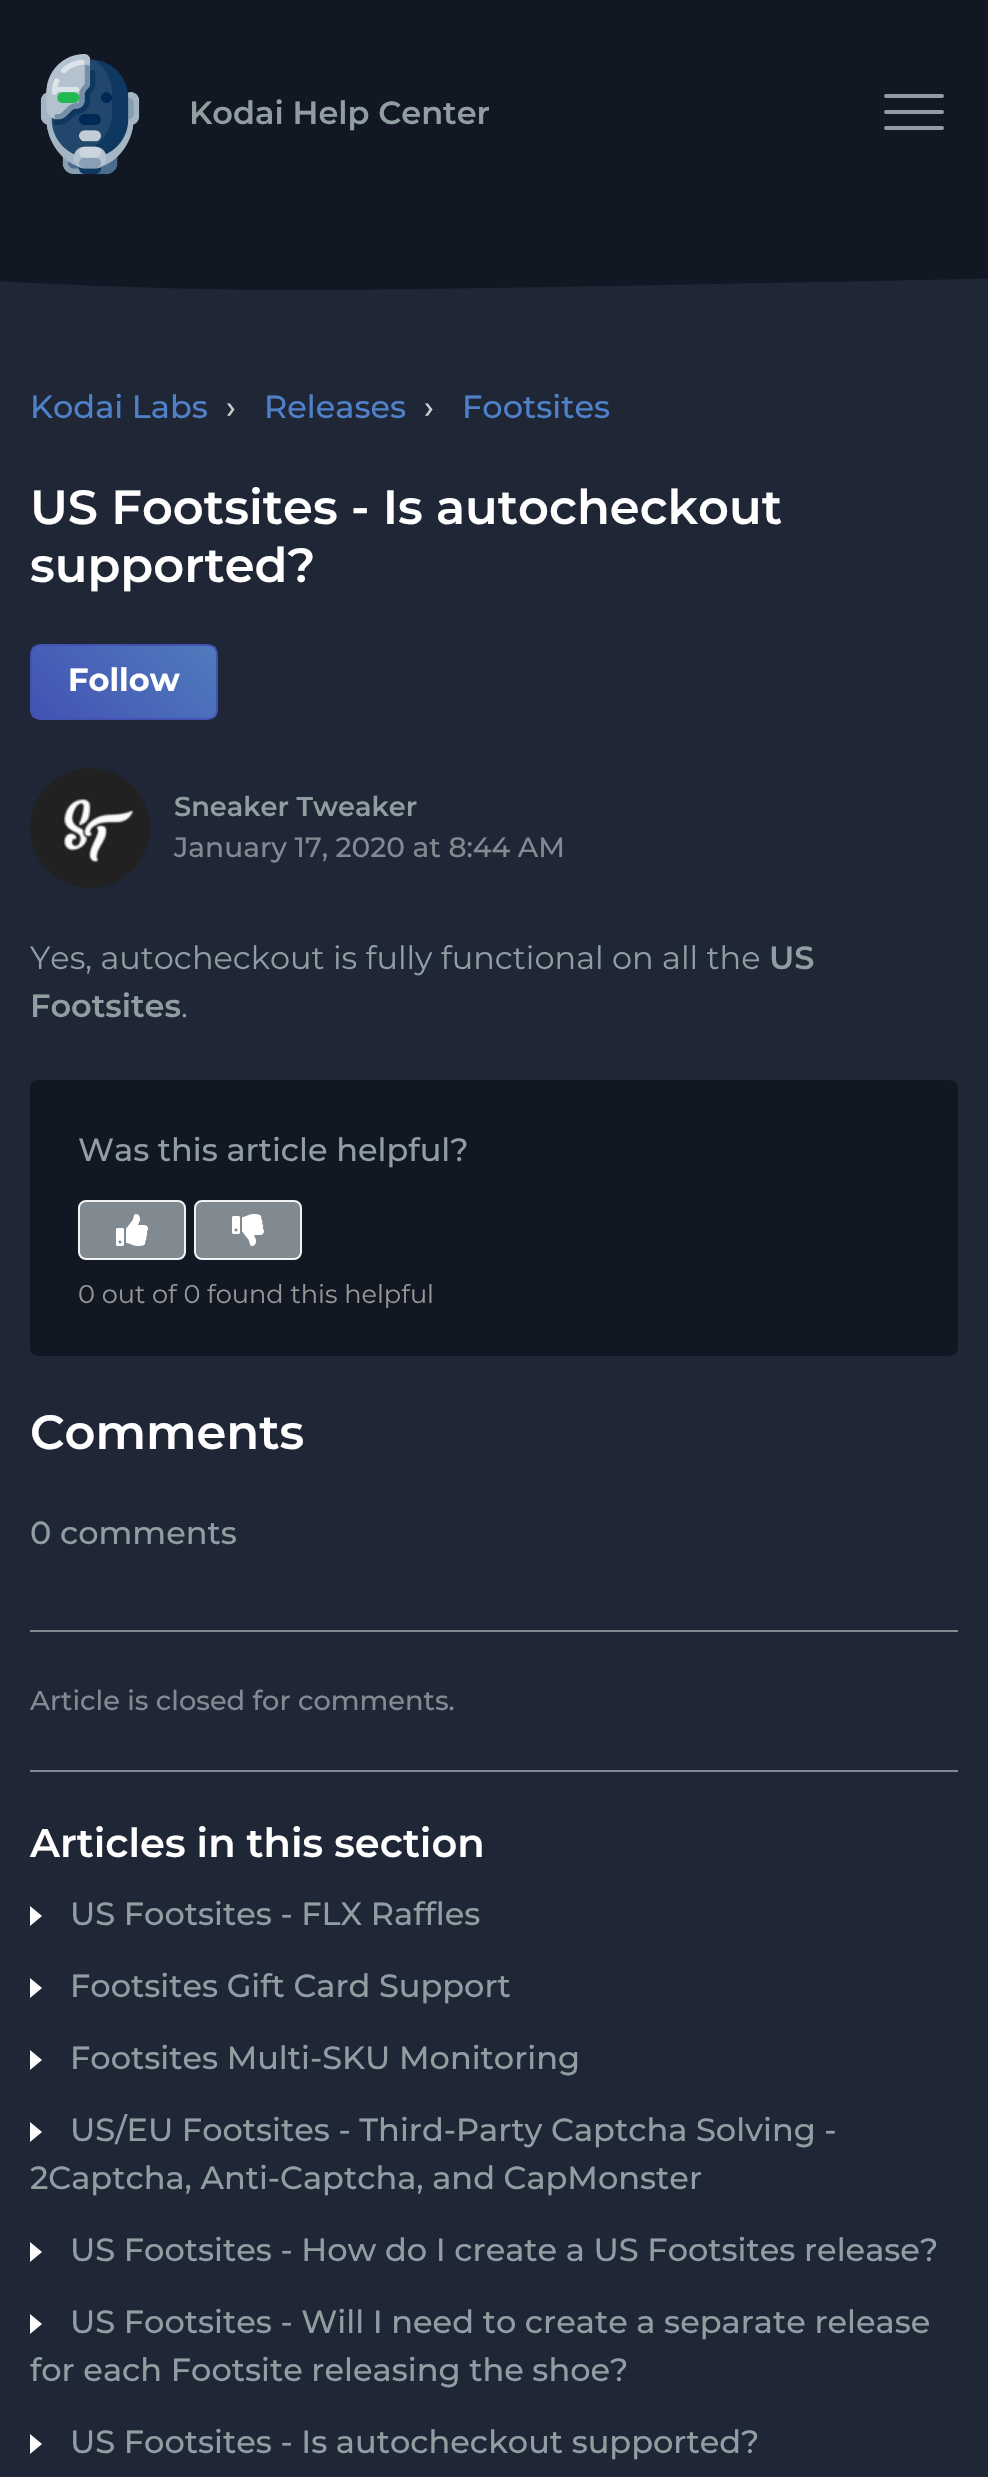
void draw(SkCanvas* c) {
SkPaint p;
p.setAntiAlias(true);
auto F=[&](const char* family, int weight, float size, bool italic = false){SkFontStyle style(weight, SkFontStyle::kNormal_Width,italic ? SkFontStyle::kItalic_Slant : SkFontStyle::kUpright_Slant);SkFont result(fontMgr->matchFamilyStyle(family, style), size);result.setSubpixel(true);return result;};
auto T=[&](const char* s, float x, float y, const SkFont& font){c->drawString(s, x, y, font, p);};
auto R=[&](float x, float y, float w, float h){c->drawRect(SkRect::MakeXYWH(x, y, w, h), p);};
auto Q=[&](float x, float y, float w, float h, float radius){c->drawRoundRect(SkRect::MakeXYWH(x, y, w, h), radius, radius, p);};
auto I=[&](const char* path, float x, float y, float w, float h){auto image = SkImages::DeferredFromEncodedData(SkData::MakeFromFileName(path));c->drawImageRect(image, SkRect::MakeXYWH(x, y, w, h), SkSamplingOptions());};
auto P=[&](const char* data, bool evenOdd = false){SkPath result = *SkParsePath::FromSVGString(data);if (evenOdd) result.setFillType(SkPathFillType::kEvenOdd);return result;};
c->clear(0xff1f2636);
p.setColor(0xff121823);
R(0,0,988,226);
I("1.png",40,54,100,120);
auto f1 = F("Montserrat",600,32);
p.setColor(0xff909ea2);
T("Kodai Help Center",189,124,f1);
Q(884,110,60,4,2);
Q(884,94,60,4,2);
Q(884,126,60,4,2);
p.setColor(0xff121823);
c->drawPath(P("M308 290c358 0 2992-64 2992-64h-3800c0 0 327 64 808 64z"),p);
auto f2 = F("Montserrat",500,32);
p.setColor(0xff4f80c8);
T("Kodai Labs",30,418,f2);
p.setColor(0xffcccccc);
T("›",226,418,f2);
p.setColor(0xff4f80c8);
T("Releases",264,418,f2);
p.setColor(0xffcccccc);
T("›",424,418,f2);
p.setColor(0xff4f80c8);
T("Footsites",462,418,f2);
auto f3 = F("Montserrat",600,48);
p.setColor(0xffffffff);
T("US Footsites - Is autocheckout",30,524,f3);
T("supported?",30,582,f3);
c->save();
c->clipPath(P("M40 644h168c5.5 0 10 4.5 10 10v56c0 5.5-4.5 10-10 10h-168c-5.5 0-10-4.5-10-10v-56c0-5.5 4.5-10 10-10z"),true);
{
const SkColor colors[] = {0xff4352b3,0xff4f7bbd};
const float stops[] = {0,1};
const SkPoint ends[] = {{60,746}, {188,618}};
p.setShader(SkGradientShader::MakeLinear(ends, colors, stops, 2, SkTileMode::kClamp));
p.setAlpha(255);
}
R(32,646,184,72);
c->restore();
p.setStroke(true);
p.setStrokeWidth(2);
p.setShader(nullptr);
p.setColor(0xff4352b3);
c->drawRoundRect(SkRect::MakeXYWH(31,645,186,74),9,9,p);
auto f4 = F("Montserrat",700,32);
p.setStroke(false);
p.setColor(0xffffffff);
T("Follow",68,691,f4);
I("2.png",30,768,120,120);
I("3.png",124,873,6,4);
auto f5 = F("Montserrat",600,27.25);
p.setColor(0xff909ea2);
T("Sneaker Tweaker",174,816,f5);
auto f6 = F("Montserrat",500,28);
p.setColor(0xff818a91);
T("January 17, 2020 at 8:44 AM",174,857,f6);
auto f7 = F("Montserrat",400,32);
p.setColor(0xff909ea2);
T("Yes, autocheckout is fully functional on all the",30,969,f7);
T("US",769,969,f1);
T("Footsites",30,1017,f1);
T(".",181,1017,f7);
p.setColor(0xff121823);
Q(30,1080,928,276,8);
p.setColor(0xff909ea2);
T("Was this article helpful?",78,1161,f2);
p.setColor(0xff818a91);
c->drawRoundRect(SkRect::MakeXYWH(79,1201,106,58),7,7,p);
p.setStroke(true);
p.setColor(0xfff1f1f1);
c->drawRoundRect(SkRect::MakeXYWH(79,1201,106,58),7,7,p);
I("4.png",116,1214,32,32);
p.setStroke(false);
p.setColor(0xff818a91);
c->drawRoundRect(SkRect::MakeXYWH(195,1201,106,58),7,7,p);
p.setStroke(true);
p.setColor(0xfff1f1f1);
c->drawRoundRect(SkRect::MakeXYWH(195,1201,106,58),7,7,p);
I("5.png",232,1214,32,32);
auto f8 = F("Montserrat",400,25.6);
p.setStroke(false);
p.setColor(0xff979797);
T("0 out of 0 found this helpful",78,1303,f8);
p.setColor(0xffffffff);
T("Comments",30,1449,f3);
p.setColor(0xff818a91);
R(30,1630,928,2);
p.setColor(0xff909ea2);
T("0 comments",30,1544,f2);
auto f9 = F("Montserrat",500,27.25);
p.setColor(0xff818a91);
T("Article is closed for comments.",30,1710,f9);
R(30,1770,928,2);
auto f10 = F("Montserrat",600,40);
p.setColor(0xffffffff);
T("Articles in this section",30,1857,f10);
c->drawPath(P("M30 1926v-20l12 10z"),p);
p.setColor(0xff909ea2);
T("US Footsites - FLX Raffles",70,1925,f2);
p.setColor(0xffffffff);
c->drawPath(P("M30 1998v-20l12 10z"),p);
p.setColor(0xff909ea2);
T("Footsites Gift Card Support",70,1997,f2);
p.setColor(0xffffffff);
c->drawPath(P("M30 2070v-20l12 10z"),p);
p.setColor(0xff909ea2);
T("Footsites Multi-SKU Monitoring",70,2069,f2);
p.setColor(0xffffffff);
c->drawPath(P("M30 2142v-20l12 10z"),p);
p.setColor(0xff909ea2);
T("US/EU Footsites - Third-Party Captcha Solving -",70,2141,f2);
T("2Captcha, Anti-Captcha, and CapMonster",30,2189,f2);
p.setColor(0xffffffff);
c->drawPath(P("M30 2262v-20l12 10z"),p);
p.setColor(0xff909ea2);
T("US Footsites - How do I create a US Footsites release?",70,2261,f2);
p.setColor(0xffffffff);
c->drawPath(P("M30 2334v-20l12 10z"),p);
p.setColor(0xff909ea2);
T("US Footsites - Will I need to create a separate release",70,2333,f2);
T("for each Footsite releasing the shoe?",30,2381,f2);
p.setColor(0xffffffff);
c->drawPath(P("M30 2454v-20l12 10z"),p);
p.setColor(0xff909ea2);
T("US Footsites - Is autocheckout supported?",70,2453,f2);
}
